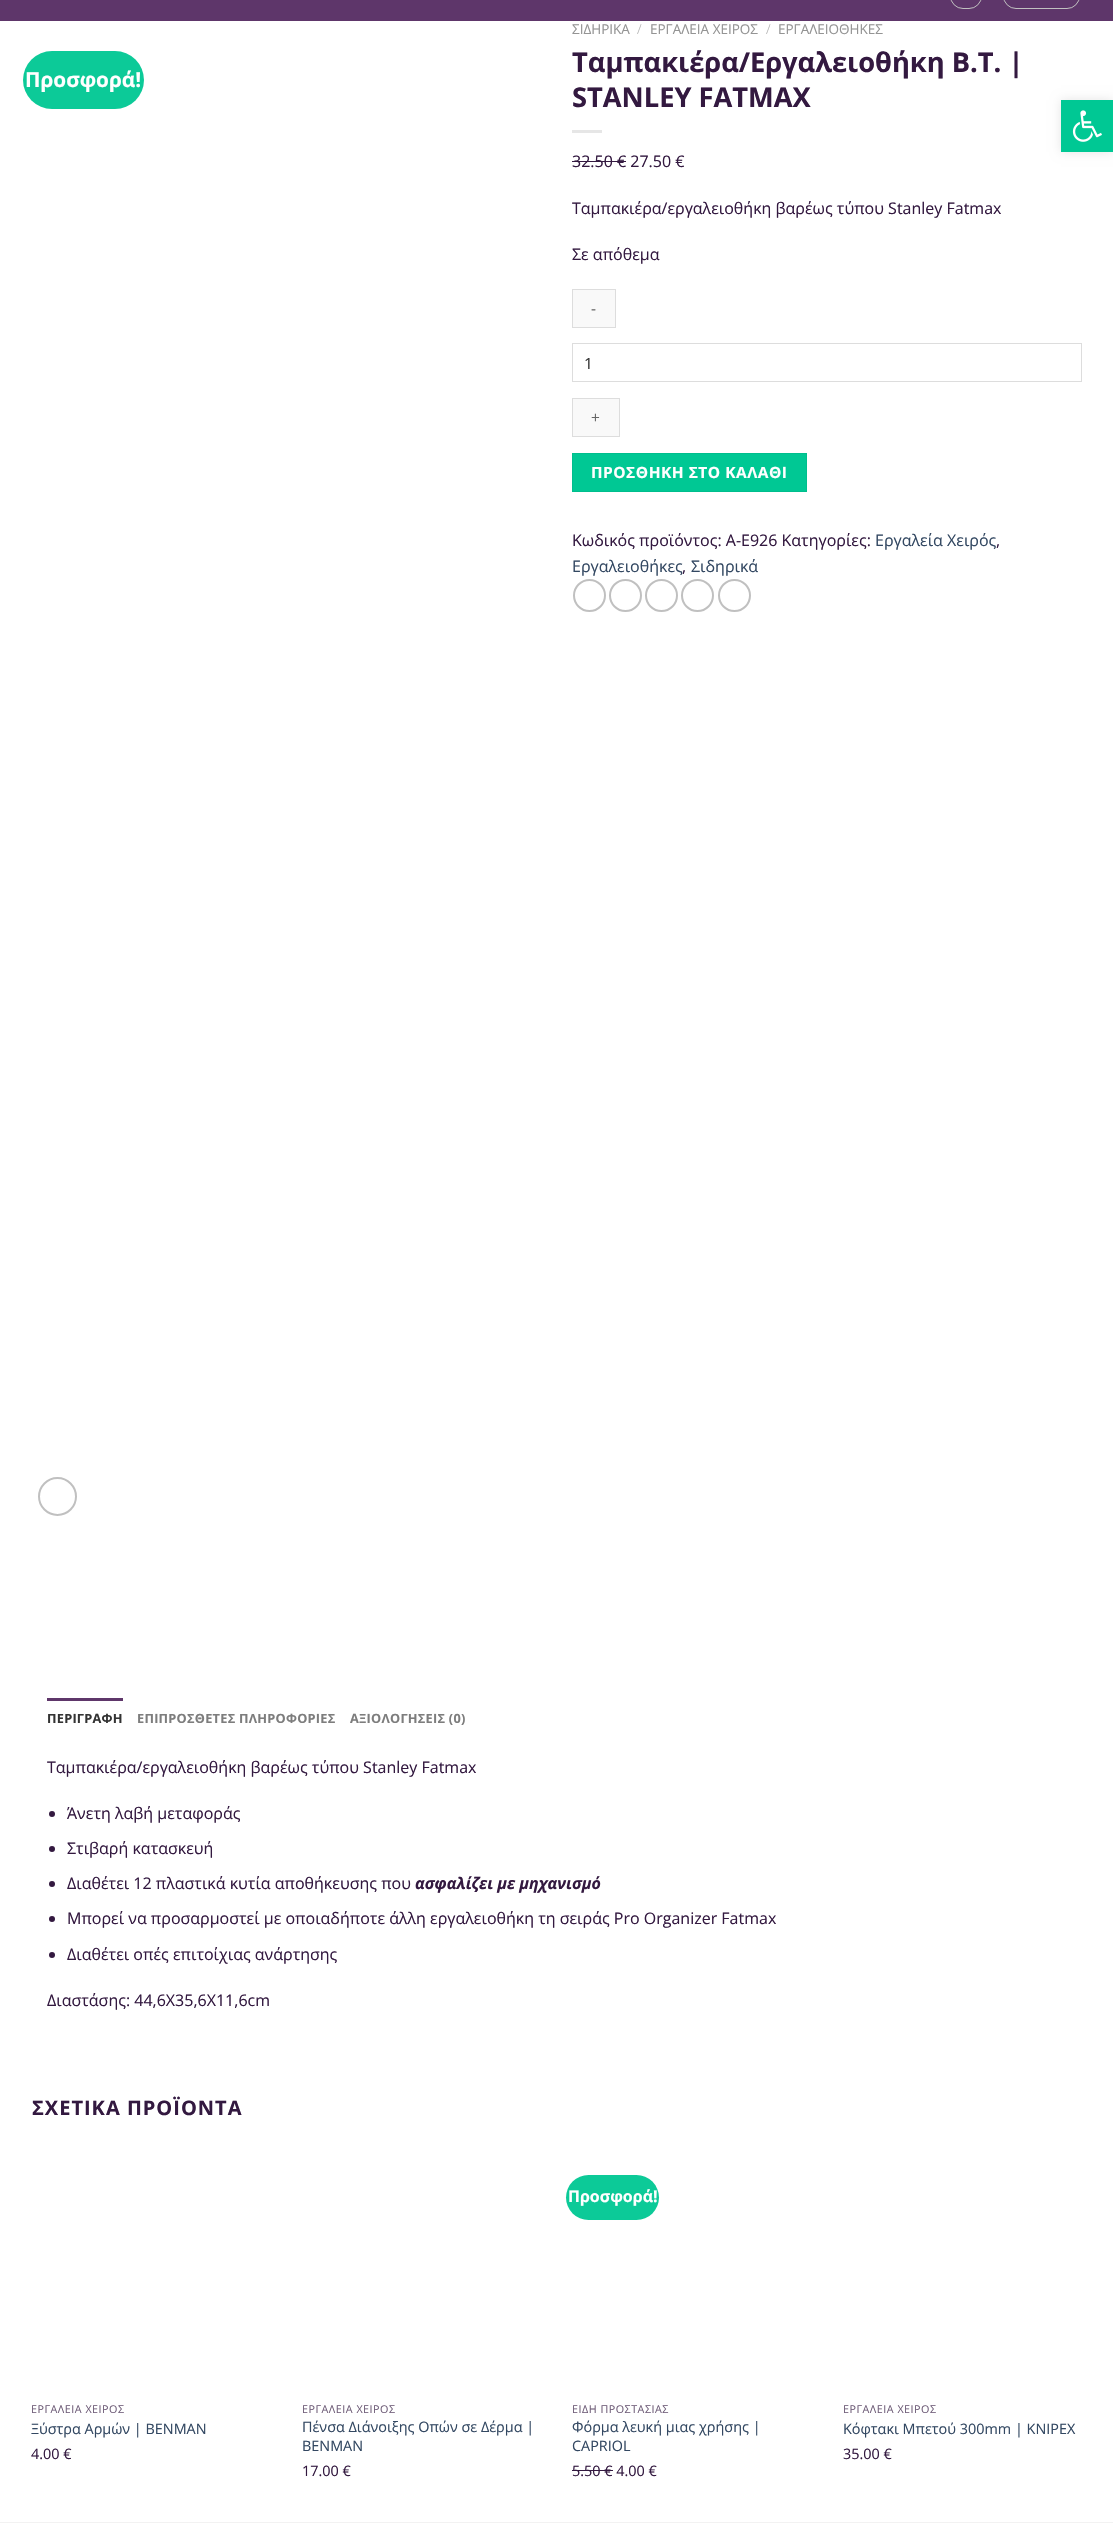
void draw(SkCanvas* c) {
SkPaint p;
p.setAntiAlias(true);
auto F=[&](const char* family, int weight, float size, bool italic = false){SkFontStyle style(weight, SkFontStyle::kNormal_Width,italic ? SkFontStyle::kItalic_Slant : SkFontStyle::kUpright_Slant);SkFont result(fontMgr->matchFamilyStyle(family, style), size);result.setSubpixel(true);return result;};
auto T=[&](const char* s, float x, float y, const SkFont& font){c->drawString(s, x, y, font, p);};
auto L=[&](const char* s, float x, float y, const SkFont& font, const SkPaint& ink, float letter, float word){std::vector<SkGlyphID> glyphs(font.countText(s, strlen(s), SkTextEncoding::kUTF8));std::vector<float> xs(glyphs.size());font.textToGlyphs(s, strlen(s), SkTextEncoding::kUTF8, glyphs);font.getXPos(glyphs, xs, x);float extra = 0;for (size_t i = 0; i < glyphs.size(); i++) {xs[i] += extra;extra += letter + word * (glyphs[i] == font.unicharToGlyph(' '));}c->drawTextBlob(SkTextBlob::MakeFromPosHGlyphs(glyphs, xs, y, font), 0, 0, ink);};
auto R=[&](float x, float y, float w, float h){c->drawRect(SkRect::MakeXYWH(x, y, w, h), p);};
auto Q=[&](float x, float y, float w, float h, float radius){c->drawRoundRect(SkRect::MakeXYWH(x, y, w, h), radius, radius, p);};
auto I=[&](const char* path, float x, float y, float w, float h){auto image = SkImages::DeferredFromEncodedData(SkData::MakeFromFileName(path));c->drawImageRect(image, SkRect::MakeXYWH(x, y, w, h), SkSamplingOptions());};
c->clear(0xffffffff);
p.setColor(0xff5e366a);
R(0,0,1113,21);
p.setStroke(true);
p.setStrokeWidth(1);
p.setColor(0xffc0c0c0);
c->drawRoundRect(SkRect::MakeXYWH(950.5,-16.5,31,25),15.5,15.5,p);
c->drawRoundRect(SkRect::MakeXYWH(1003.5,-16.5,76,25),15.5,15.5,p);
p.setStroke(false);
p.setColor(0xff0cca98);
Q(23,51,121,58,29);
auto f1 = F("Open Sans",700,20.75);
p.setColor(0xffffffff);
T("Προσφορά!",25,87,f1);
p.setStroke(true);
p.setStrokeWidth(2);
p.setColor(0xffc0c0c0);
c->drawCircle(57.5,1496.5,18.5,p);
auto f2 = F("Open Sans",400,13.5);
p.setStroke(false);
p.setColor(0xff949494);
T("ΣΙΔΗΡΙΚΑ",572,34,f2);
auto f3 = F("Open Sans",300,13.5);
p.setColor(0xffb2b2b2);
T("/",637,34,f3);
p.setColor(0xff949494);
T("ΕΡΓΑΛΕΙΑ ΧΕΙΡΟΣ",650,34,f2);
p.setColor(0xffb2b2b2);
T("/",766,34,f3);
p.setColor(0xff949494);
T("ΕΡΓΑΛΕΙΟΘΗΚΕΣ",778,34,f2);
auto f4 = F("Open Sans",700,27.25);
p.setColor(0xff331940);
T("Ταμπακιέρα/Εργαλειοθήκη Β.Τ. |",572,72,f4);
T("STANLEY FATMAX",572,107,f4);
p.setColor(0xffe6e6e6);
R(572,130,30,3);
auto f5 = F("Open Sans",400,16);
p.setColor(0xff331940);
T("32.50 € 27.50 €",572,167,f5);
R(572,161,54,1);
T("Ταμπακιέρα/εργαλειοθήκη βαρέως τύπου Stanley Fatmax",572,214,f5);
T("Σε απόθεμα",572,260,f5);
p.setColor(0xfff9f9f9);
c->drawRect(SkRect::MakeXYWH(572.5,289.5,43,38),p);
p.setStroke(true);
p.setStrokeWidth(1);
p.setColor(0xffdddddd);
c->drawRect(SkRect::MakeXYWH(572.5,289.5,43,38),p);
auto f6 = F("Open Sans",400,15.5);
p.setStroke(false);
p.setColor(0xff666666);
L("-",591,314,f6,p,.5,0);
p.setStroke(true);
p.setColor(0xffdddddd);
c->drawRect(SkRect::MakeXYWH(572.5,343.5,509,38),p);
p.setStroke(false);
p.setColor(0xff333333);
T("1",584,369,f6);
p.setColor(0xfff9f9f9);
c->drawRect(SkRect::MakeXYWH(572.5,398.5,47,38),p);
p.setStroke(true);
p.setColor(0xffdddddd);
c->drawRect(SkRect::MakeXYWH(572.5,398.5,47,38),p);
p.setStroke(false);
p.setColor(0xff666666);
L("+",591,423,f6,p,.5,0);
p.setColor(0xff00c894);
c->drawRect(SkRect::MakeXYWH(572.5,453.5,234,38),p);
p.setStroke(true);
p.setColor(0xff00be8d);
c->drawRect(SkRect::MakeXYWH(572.5,453.5,234,38),p);
auto f7 = F("Open Sans",700,15.5);
p.setStroke(false);
p.setColor(0xffffffff);
L("ΠΡΟΣΘΗΚΗ ΣΤΟ ΚΑΛΑΘΙ",591,478,f7,p,.5,0);
p.setColor(0xff331940);
T("Κωδικός προϊόντος: Α-Ε926 Κατηγορίες:",572,546,f5);
p.setColor(0xff334862);
T("Εργαλεία Χειρός",875,546,f5);
p.setColor(0xff331940);
T(",",996,546,f5);
p.setColor(0xff334862);
T("Εργαλειοθήκες",572,572,f5);
p.setColor(0xff331940);
T(",",682,572,f5);
p.setColor(0xff334862);
T("Σιδηρικά",691,572,f5);
p.setStroke(true);
p.setStrokeWidth(2);
p.setColor(0xffc0c0c0);
c->drawCircle(589.5,595.5,15.5,p);
c->drawCircle(625.5,595.5,15.5,p);
c->drawCircle(661.5,595.5,15.5,p);
c->drawCircle(697.5,595.5,15.5,p);
c->drawCircle(734.5,595.5,15.5,p);
p.setStroke(false);
p.setColor(0xff5e366a);
R(47,1698,76,3);
auto f8 = F("Open Sans",700,12.75);
p.setColor(0xff333333);
L("ΠΕΡΙΓΡΑΦΗ",47,1723,f8,p,.25,0);
p.setColor(0xff7d7d7d);
L("ΕΠΙΠΡΟΣΘΕΤΕΣ ΠΛΗΡΟΦΟΡΙΕΣ",137,1723,f8,p,.25,0);
L("ΑΞΙΟΛΟΓΗΣΕΙΣ (0)",350,1723,f8,p,.25,0);
p.setColor(0xff331940);
T("Tαμπακιέρα/εργαλειοθήκη βαρέως τύπου Stanley Fatmax",47,1773,f5);
c->drawCircle(52,1814,3,p);
T("Άνετη λαβή μεταφοράς",67,1819,f5);
c->drawCircle(52,1849,3,p);
T("Στιβαρή κατασκευή",67,1854,f5);
c->drawCircle(52,1884,3,p);
T("Διαθέτει 12 πλαστικά κυτία αποθήκευσης που",67,1889,f5);
auto f9 = F("Open Sans",700,16,true);
T("ασφαλίζει με μηχανισμό",415,1889,f9);
c->drawCircle(52,1919,3,p);
T("Μπορεί να προσαρμοστεί με οποιαδήποτε άλλη εργαλειοθήκη τη σειράς Pro Organizer Fatmax",67,1924,f5);
c->drawCircle(52,1955,3,p);
T("Διαθέτει οπές επιτοίχιας ανάρτησης",67,1960,f5);
T("Διαστάσης: 44,6Χ35,6Χ11,6cm",47,2006,f5);
auto f10 = F("Open Sans",700,20);
L("ΣΧΕΤΙΚΑ ΠΡΟΪΟΝΤΑ",32,2115,f10,p,1,0);
auto f11 = F("Open Sans",400,10.75);
p.setColor(0xff705e79);
L("ΕΡΓΑΛΕΙΑ ΧΕΙΡΟΣ",31,2413,f11,p,.5,0);
auto f12 = F("Open Sans",400,14.4);
p.setColor(0xff334862);
T("Ξύστρα Αρμών | ΒΕΝΜΑΝ",31,2434,f12);
p.setColor(0xff331940);
T("4.00 €",31,2459,f12);
p.setColor(0xff705e79);
L("ΕΡΓΑΛΕΙΑ ΧΕΙΡΟΣ",302,2413,f11,p,.5,0);
p.setColor(0xff334862);
T("Πένσα Διάνοιξης Οπών σε Δέρμα |",302,2432,f12);
T("BENMAN",302,2451,f12);
p.setColor(0xff331940);
T("17.00 €",302,2476,f12);
p.setColor(0xff0cca98);
Q(566,2175,93,45,22.5);
auto f13 = F("Open Sans",700,16);
p.setColor(0xffffffff);
T("Προσφορά!",568,2202,f13);
p.setColor(0xff705e79);
L("ΕΙΔΗ ΠΡΟΣΤΑΣΙΑΣ",572,2413,f11,p,.5,0);
p.setColor(0xff334862);
T("Φόρμα λευκή μιας χρήσης |",572,2432,f12);
T("CAPRIOL",572,2451,f12);
p.setColor(0xff331940);
T("5.50 € 4.00 €",572,2476,f12);
R(572,2470,41,1);
p.setColor(0xff705e79);
L("ΕΡΓΑΛΕΙΑ ΧΕΙΡΟΣ",843,2413,f11,p,.5,0);
p.setColor(0xff334862);
T("Κόφτακι Μπετού 300mm | KNIPEX",843,2434,f12);
p.setColor(0xff331940);
T("35.00 €",843,2459,f12);
p.setColor(0xfff2f2f2);
R(0,2522,1113,1);
p.setColor(0x1a000000);
p.setMaskFilter(SkMaskFilter::MakeBlur(kNormal_SkBlurStyle, 5));
c->drawRect(SkRect::MakeXYWH(1061,100,52,52),p);
p.setMaskFilter(nullptr);
p.setColor(0xff00c894);
R(1061,100,52,52);
I("1.png",1072,110,30,32);
}
